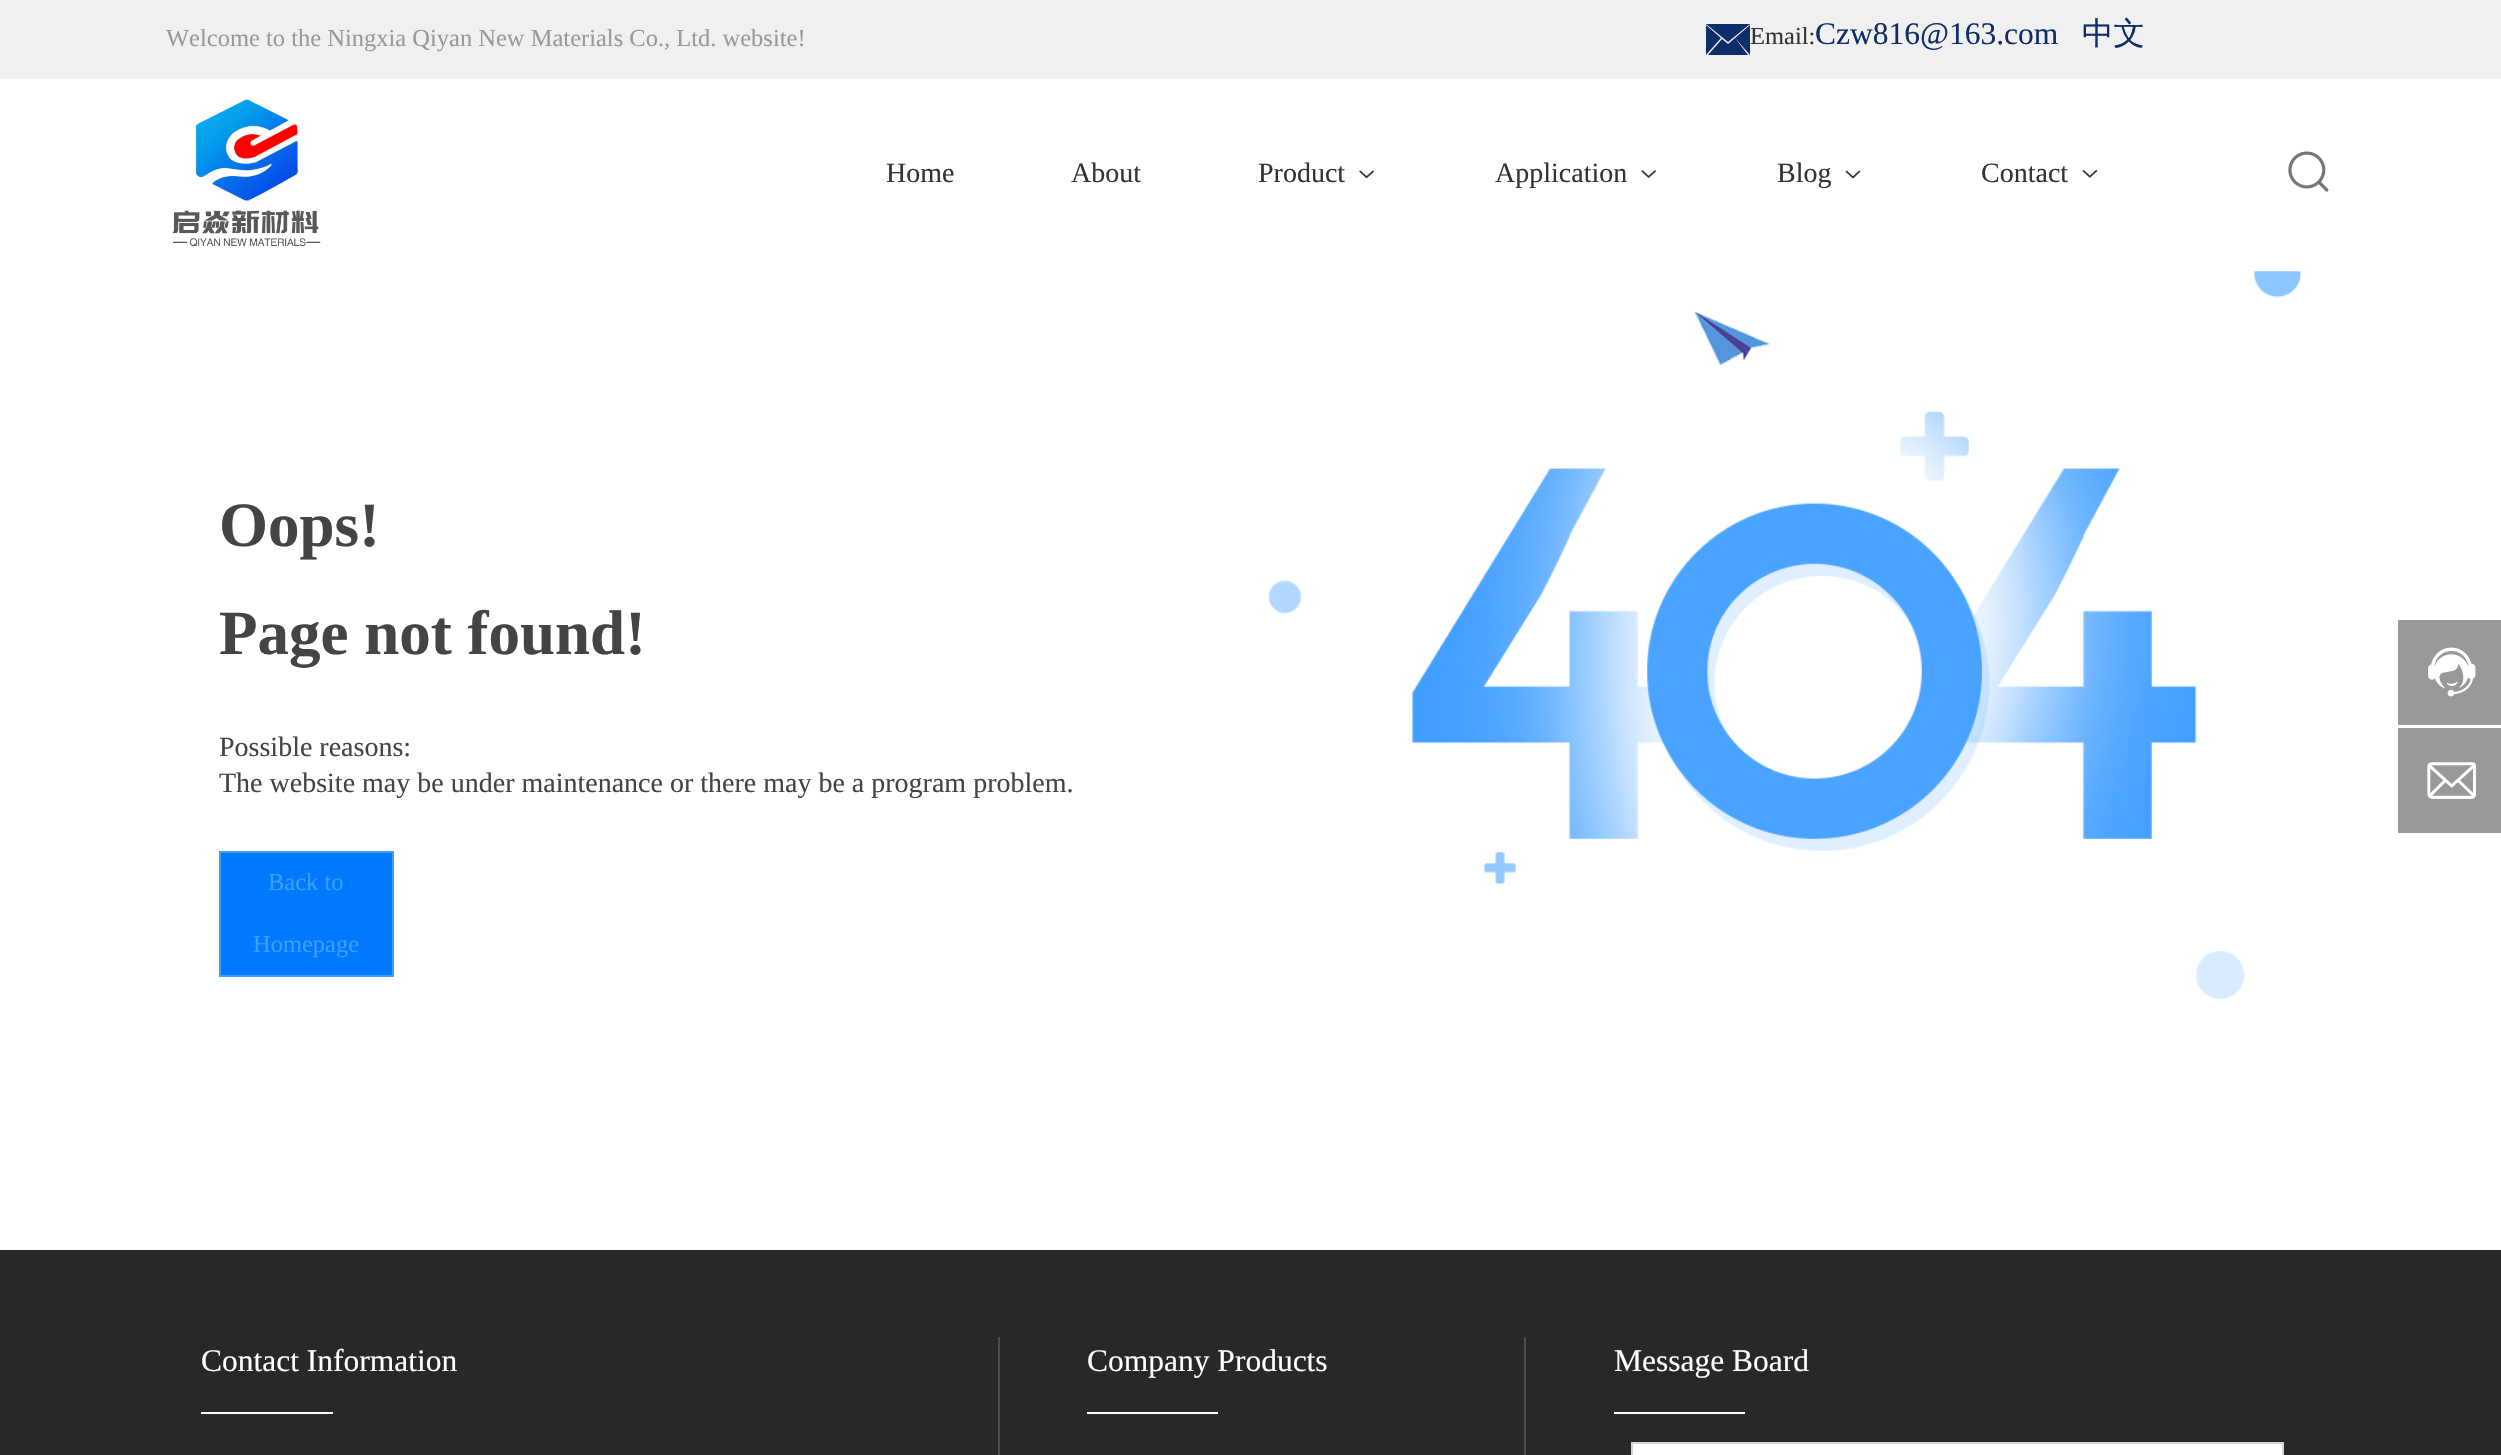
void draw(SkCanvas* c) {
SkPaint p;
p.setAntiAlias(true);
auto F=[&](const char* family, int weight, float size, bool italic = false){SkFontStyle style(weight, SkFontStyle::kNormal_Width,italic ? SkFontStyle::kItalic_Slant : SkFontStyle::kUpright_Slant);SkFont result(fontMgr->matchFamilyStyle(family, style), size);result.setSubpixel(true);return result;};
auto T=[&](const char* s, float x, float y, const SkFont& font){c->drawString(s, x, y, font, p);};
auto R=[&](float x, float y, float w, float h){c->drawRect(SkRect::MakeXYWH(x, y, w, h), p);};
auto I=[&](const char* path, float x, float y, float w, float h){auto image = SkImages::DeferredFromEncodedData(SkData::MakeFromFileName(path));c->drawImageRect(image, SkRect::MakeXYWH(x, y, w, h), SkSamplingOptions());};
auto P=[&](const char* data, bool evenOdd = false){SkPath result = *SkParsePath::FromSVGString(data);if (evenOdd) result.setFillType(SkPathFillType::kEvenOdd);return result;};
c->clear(0xffffffff);
I("7.png",1268,271,1033,728);
p.setColor(0x4dffffff);
R(2254,271,47,1);
p.setColor(0xfff0f0f0);
R(0,0,2501,79);
auto f1 = F("Liberation Serif",400,24.5);
p.setColor(0xff999999);
T("Welcome to the Ningxia Qiyan New Materials Co., Ltd. website!",166,46,f1);
p.setColor(0xff0d2e68);
c->drawPath(P("M1750 24l-22 18l-22-18zm-44 1l15 13l-15 17z"),p);
c->drawPath(P("M1708 55l14-16l6 5l7-6l13 17zm42 0l-15-17l15-13z"),p);
p.setColor(0xff333333);
T("Email:",1750,44,f1);
auto f2 = F("Liberation Serif",400,31.5);
p.setColor(0xff0d2e68);
T("Czw816@163.com",1815,44,f2);
auto f3 = F("WenQuanYi Zen Hei",500,31.5);
T("中文",2082,44,f3);
I("1.png",172,99,149,148);
auto f4 = F("Liberation Serif",400,28);
p.setColor(0xff333333);
T("Home",886,182,f4);
T("About",1071,182,f4);
T("Product",1258,182,f4);
I("2.png",1359,170,15,9);
T("Application",1495,182,f4);
I("3.png",1641,170,15,8);
T("Blog",1777,182,f4);
I("4.png",1845,170,16,9);
T("Contact",1981,182,f4);
I("5.png",2082,170,16,8);
I("6.png",2288,151,41,41);
auto f5 = F("Liberation Serif",700,63);
p.setColor(0xff444444);
T("Oops!",219,546,f5);
T("Page not found!",219,654,f5);
T("Possible reasons:",219,756,f4);
T("The website may be under maintenance or there may be a program problem.",219,792,f4);
p.setColor(0xff007bff);
c->drawRect(SkRect::MakeXYWH(220,852,173,124),p);
p.setStroke(true);
p.setStrokeWidth(2);
p.setColor(0xff409eff);
c->drawRect(SkRect::MakeXYWH(220,852,173,124),p);
p.setStroke(false);
T("Back to",268,890,f1);
T("Homepage",253,952,f1);
p.setColor(0xff282828);
R(0,1250,2501,205);
p.setColor(0xff4c4c4c);
R(998,1337,2,118);
p.setColor(0xffffffff);
T("Contact Information",201,1371,f2);
R(201,1412,132,2);
T("Company Products",1087,1371,f2);
R(1087,1412,131,2);
p.setColor(0xff4c4c4c);
R(1524,1337,2,118);
p.setColor(0xffffffff);
T("Message Board",1614,1371,f2);
R(1614,1412,131,2);
c->drawRect(SkRect::MakeXYWH(1632,1443,651,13),p);
p.setStroke(true);
p.setColor(0xffced4da);
c->drawRect(SkRect::MakeXYWH(1632,1443,651,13),p);
p.setStroke(false);
p.setColor(0xff999999);
R(2398,620,103,105);
I("8.png",2428,647,48,50);
R(2398,728,103,105);
I("9.png",2427,762,49,37);
}
